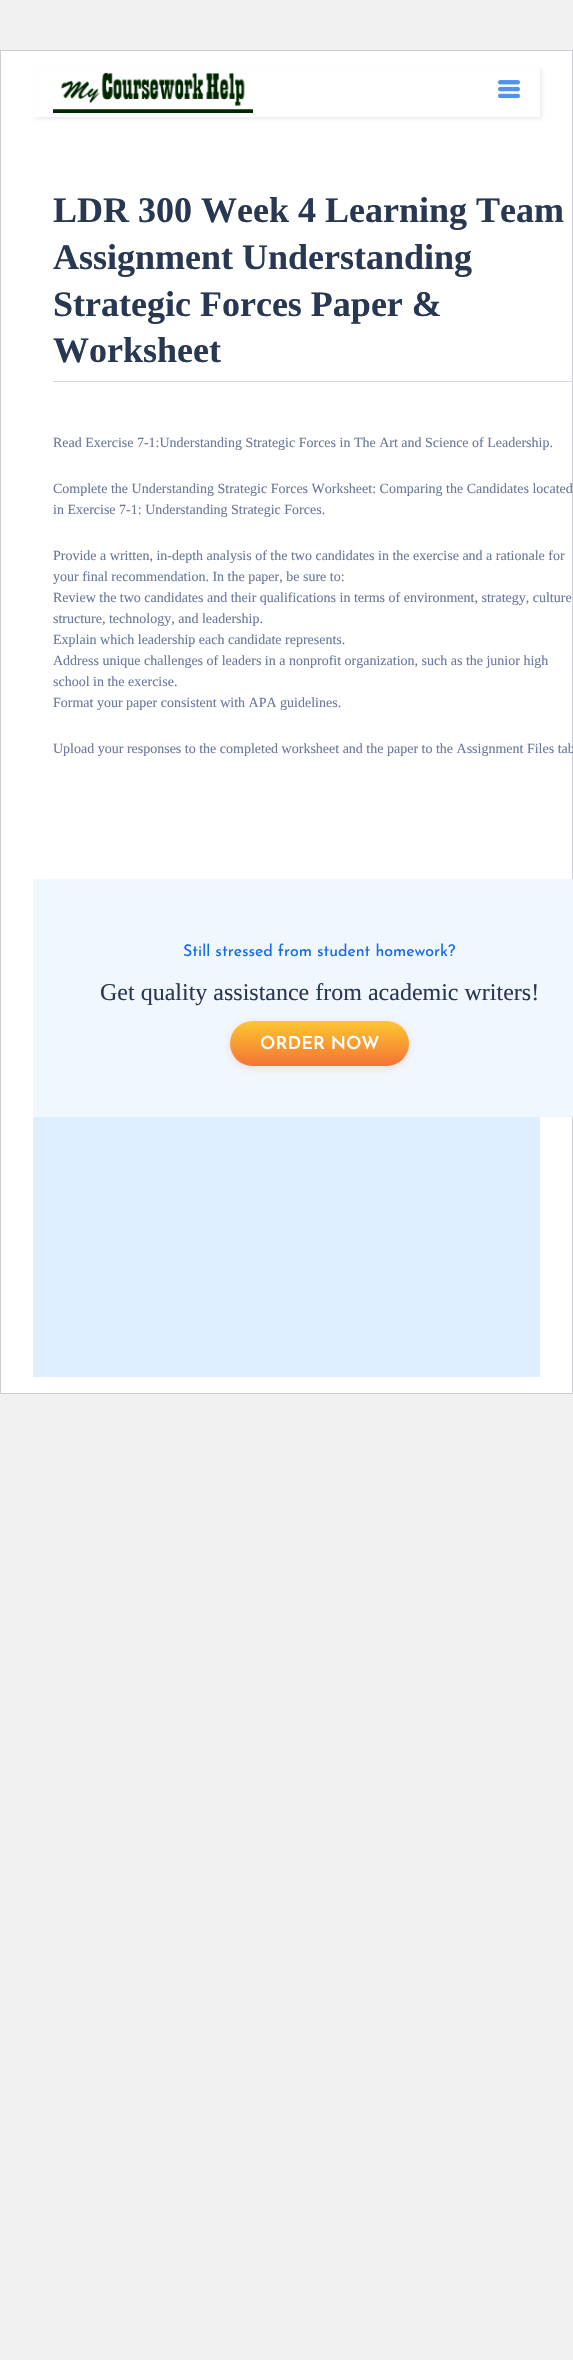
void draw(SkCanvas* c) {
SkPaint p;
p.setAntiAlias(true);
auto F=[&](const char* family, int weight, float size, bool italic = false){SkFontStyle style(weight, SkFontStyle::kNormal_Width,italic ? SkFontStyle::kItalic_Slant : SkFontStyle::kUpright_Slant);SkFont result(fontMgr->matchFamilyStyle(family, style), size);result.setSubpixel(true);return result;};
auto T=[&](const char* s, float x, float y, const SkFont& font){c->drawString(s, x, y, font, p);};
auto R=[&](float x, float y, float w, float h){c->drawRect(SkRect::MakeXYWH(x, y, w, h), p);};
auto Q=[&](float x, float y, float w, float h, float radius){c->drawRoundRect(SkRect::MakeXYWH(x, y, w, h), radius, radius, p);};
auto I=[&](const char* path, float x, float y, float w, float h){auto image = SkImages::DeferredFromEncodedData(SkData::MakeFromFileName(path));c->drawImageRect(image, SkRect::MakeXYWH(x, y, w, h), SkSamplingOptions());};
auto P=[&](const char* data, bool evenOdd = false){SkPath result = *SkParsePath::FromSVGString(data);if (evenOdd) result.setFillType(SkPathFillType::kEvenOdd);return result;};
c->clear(0xfff1f1f1);
p.setColor(0xffffffff);
c->drawRect(SkRect::MakeXYWH(.5,50.5,572,1343),p);
p.setStroke(true);
p.setStrokeWidth(1);
p.setColor(0xffccd0d4);
c->drawRect(SkRect::MakeXYWH(.5,50.5,572,1343),p);
c->save();
c->clipPath(P("M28 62h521v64h-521zm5 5h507v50h-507z",true),true);
p.setStroke(false);
p.setColor(0x1a293852);
p.setMaskFilter(SkMaskFilter::MakeBlur(kNormal_SkBlurStyle, 2));
c->drawRect(SkRect::MakeXYWH(35,69,507,50),p);
p.setMaskFilter(nullptr);
c->restore();
I("1.png",53,72,200,41);
I("2.png",498,80,22,19);
p.setColor(0xffdadada);
R(53,381,520,1);
auto f1 = F("Liberation Serif",700,36);
p.setColor(0xff293852);
T("LDR 300 Week 4 Learning Team",53,222,f1);
T("Assignment Understanding",53,269,f1);
T("Strategic Forces Paper &",53,316,f1);
T("Worksheet",53,362,f1);
auto f2 = F("Liberation Serif",400,14);
p.setColor(0xff69779b);
T("Read Exercise 7-1:Understanding Strategic Forces in The Art and Science of Leadership.",53,447,f2);
T("Complete the Understanding Strategic Forces Worksheet: Comparing the Candidates located",53,493,f2);
T("in Exercise 7-1: Understanding Strategic Forces.",53,514,f2);
T("Provide a written, in-depth analysis of the two candidates in the exercise and a rationale for",53,560,f2);
T("your final recommendation. In the paper, be sure to:",53,581,f2);
T("Review the two candidates and their qualifications in terms of environment, strategy, culture",53,602,f2);
T("structure, technology, and leadership.",53,623,f2);
T("Explain which leadership each candidate represents.",53,644,f2);
T("Address unique challenges of leaders in a nonprofit organization, such as the junior high",53,665,f2);
T("school in the exercise.",53,686,f2);
T("Format your paper consistent with APA guidelines.",53,707,f2);
T("Upload your responses to the completed worksheet and the paper to the Assignment Files tab",53,753,f2);
p.setColor(0xfff1f7ff);
Q(33,879,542,238,2);
auto f3 = F("Josefin Sans",400,16);
p.setColor(0xff136ce9);
T("Still stressed from student homework?",183,956,f3);
auto f4 = F("Liberation Serif",400,24);
p.setColor(0xff293852);
T("Get quality assistance from academic writers!",100,1000,f4);
p.setColor(0x33d9642c);
p.setMaskFilter(SkMaskFilter::MakeBlur(kNormal_SkBlurStyle, 4));
c->drawRoundRect(SkRect::MakeXYWH(230,1023,179,45),22.5,22.5,p);
p.setMaskFilter(nullptr);
{
const SkColor colors[] = {0xfffdc830,0xfff37335};
const float stops[] = {0,1};
const SkPoint ends[] = {{320,1021}, {320,1066}};
p.setShader(SkGradientShader::MakeLinear(ends, colors, stops, 2, SkTileMode::kClamp));
p.setAlpha(255);
}
Q(230,1021,179,45,22.5);
auto f5 = F("Josefin Sans",600,18);
p.setShader(nullptr);
p.setColor(0xffffffff);
T("ORDER NOW",260,1049,f5);
p.setColor(0xffdceeff);
R(33,1117,507,260);
}
